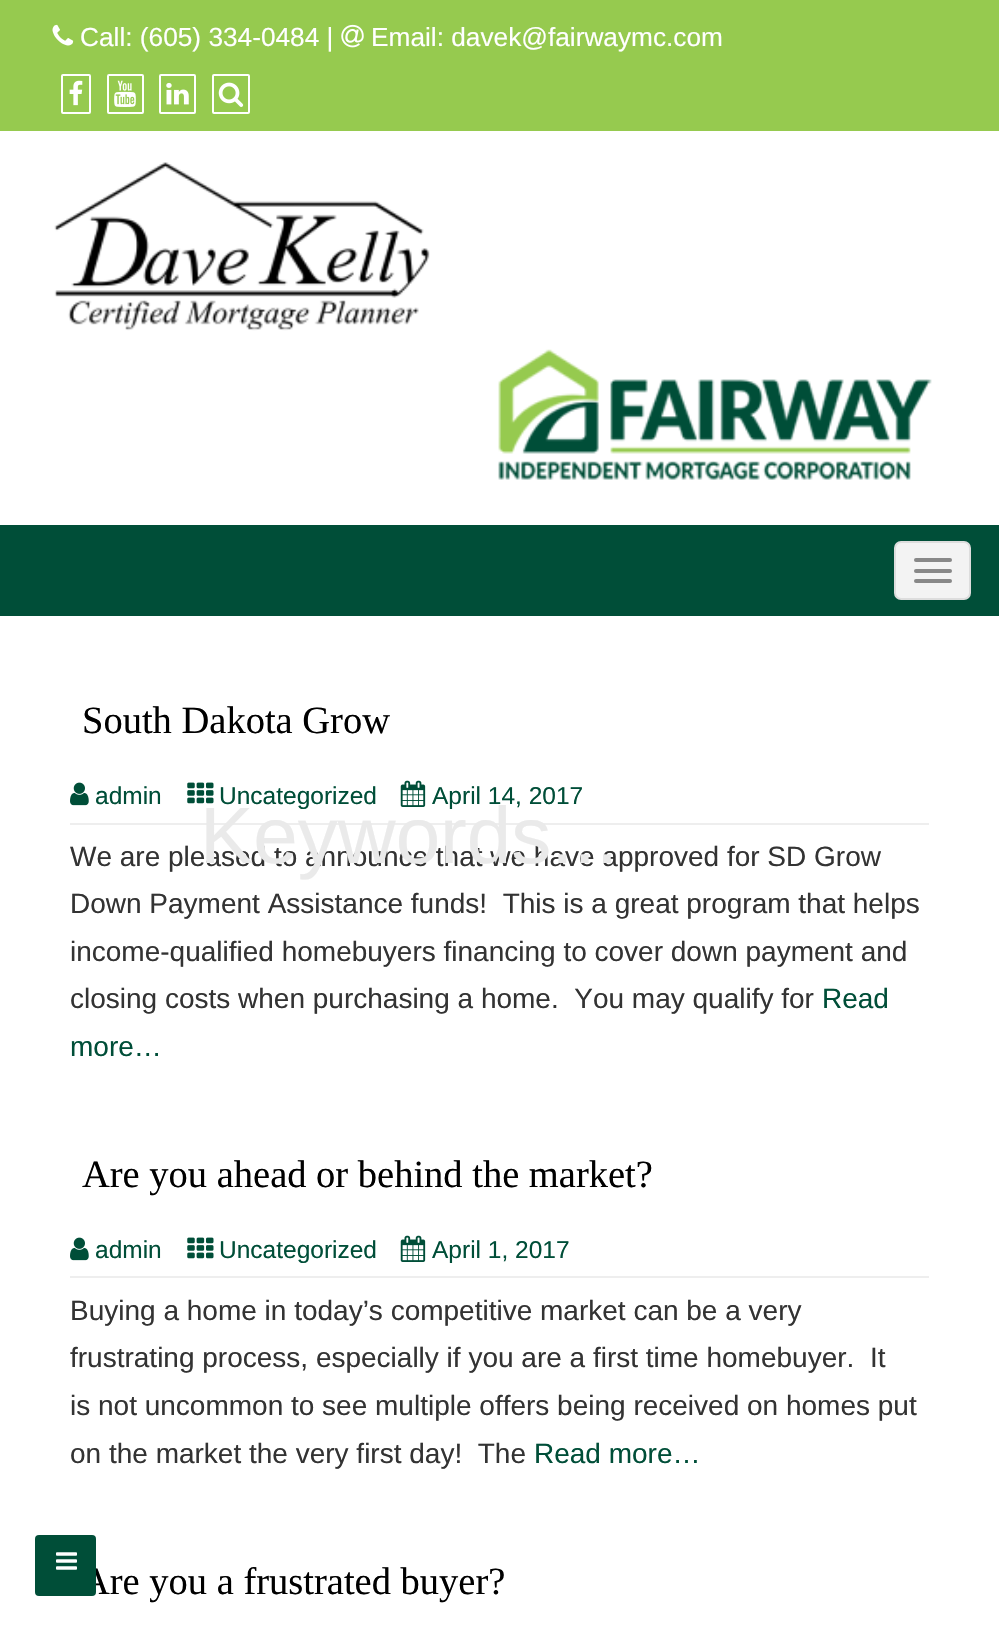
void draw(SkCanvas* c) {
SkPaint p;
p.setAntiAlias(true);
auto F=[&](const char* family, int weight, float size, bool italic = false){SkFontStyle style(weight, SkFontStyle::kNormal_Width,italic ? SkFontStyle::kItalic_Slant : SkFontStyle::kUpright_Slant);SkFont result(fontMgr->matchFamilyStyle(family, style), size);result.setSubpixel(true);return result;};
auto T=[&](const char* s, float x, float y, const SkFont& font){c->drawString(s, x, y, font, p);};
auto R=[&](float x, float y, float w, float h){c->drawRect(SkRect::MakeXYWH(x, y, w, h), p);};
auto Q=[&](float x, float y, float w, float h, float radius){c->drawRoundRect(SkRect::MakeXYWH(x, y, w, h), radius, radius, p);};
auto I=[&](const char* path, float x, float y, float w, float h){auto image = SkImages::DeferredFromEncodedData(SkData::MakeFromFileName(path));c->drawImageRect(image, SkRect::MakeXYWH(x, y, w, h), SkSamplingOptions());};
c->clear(0xffffffff);
p.setColor(0xff96ca4f);
R(0,0,999,131);
I("1.png",52,24,22,22);
auto f1 = F("Liberation Sans",400,26.25);
p.setColor(0xffffffff);
T("Call: (605) 334-0484 |",80,46,f1);
I("2.png",341,24,23,24);
T("Email: davek@fairwaymc.com",371,46,f1);
p.setStroke(true);
p.setStrokeWidth(2);
c->drawRoundRect(SkRect::MakeXYWH(62,75,28,38),1,1,p);
I("3.png",69,80,14,26);
c->drawRoundRect(SkRect::MakeXYWH(108,75,35,38),1,1,p);
I("4.png",114,80,22,27);
c->drawRoundRect(SkRect::MakeXYWH(160,75,35,38),1,1,p);
I("5.png",166,82,23,23);
c->drawRoundRect(SkRect::MakeXYWH(213,75,36,38),1,1,p);
I("6.png",218,82,26,25);
I("12.png",400,780,26,27);
p.setStroke(false);
p.setColor(0xffeeeeee);
R(70,823,859,2);
auto f2 = F("Liberation Sans",400,28);
p.setColor(0xff333333);
T("We are pleased to announce that we have approved for SD Grow",70,866,f2);
auto f3 = F("Liberation Sans",400,80);
p.setColor(0xffeaeaea);
T("Keywords...",200,863,f3);
I("7.png",54,162,376,169);
I("8.png",498,349,434,131);
p.setColor(0xff004e38);
R(0,525,999,91);
p.setColor(0xfff3f3f3);
c->drawRoundRect(SkRect::MakeXYWH(895,542,75,57),6,6,p);
p.setStroke(true);
p.setColor(0xffdddddd);
c->drawRoundRect(SkRect::MakeXYWH(895,542,75,57),6,6,p);
p.setStroke(false);
p.setColor(0xff888888);
Q(914,558,38,4,2);
Q(914,569,38,4,2);
Q(914,579,38,4,2);
auto f4 = F("Liberation Serif",400,38.5);
p.setColor(0xff000000);
T("Are you a frustrated buyer?",82,1594,f4);
p.setColor(0xff004e38);
Q(35,1535,61,61,4);
I("9.png",56,1552,21,18);
p.setColor(0xff000000);
T("South Dakota Grow",82,733,f4);
I("10.png",70,782,19,24);
auto f5 = F("Liberation Sans",400,24.5);
p.setColor(0xff004e38);
T("admin",95,804,f5);
I("11.png",187,782,27,22);
T("Uncategorized",219,804,f5);
T("April 14, 2017",432,804,f5);
p.setColor(0xff333333);
T("Down Payment Assistance funds!  This is a great program that helps",70,913,f2);
T("income-qualified homebuyers financing to cover down payment and",70,961,f2);
T("closing costs when purchasing a home.  You may qualify for",70,1008,f2);
p.setColor(0xff004e38);
T("Read",822,1008,f2);
T("more…",70,1056,f2);
p.setColor(0xff000000);
T("Are you ahead or behind the market?",82,1187,f4);
I("10.png",70,1237,19,24);
p.setColor(0xff004e38);
T("admin",95,1258,f5);
I("11.png",187,1237,27,22);
T("Uncategorized",219,1258,f5);
I("12.png",400,1235,26,27);
T("April 1, 2017",432,1258,f5);
p.setColor(0xffeeeeee);
R(70,1276,859,2);
p.setColor(0xff333333);
T("Buying a home in today’s competitive market can be a very",70,1320,f2);
T("frustrating process, especially if you are a first time homebuyer.  It",70,1367,f2);
T("is not uncommon to see multiple offers being received on homes put",70,1415,f2);
T("on the market the very first day!  The",70,1463,f2);
p.setColor(0xff004e38);
T("Read more…",534,1463,f2);
}
